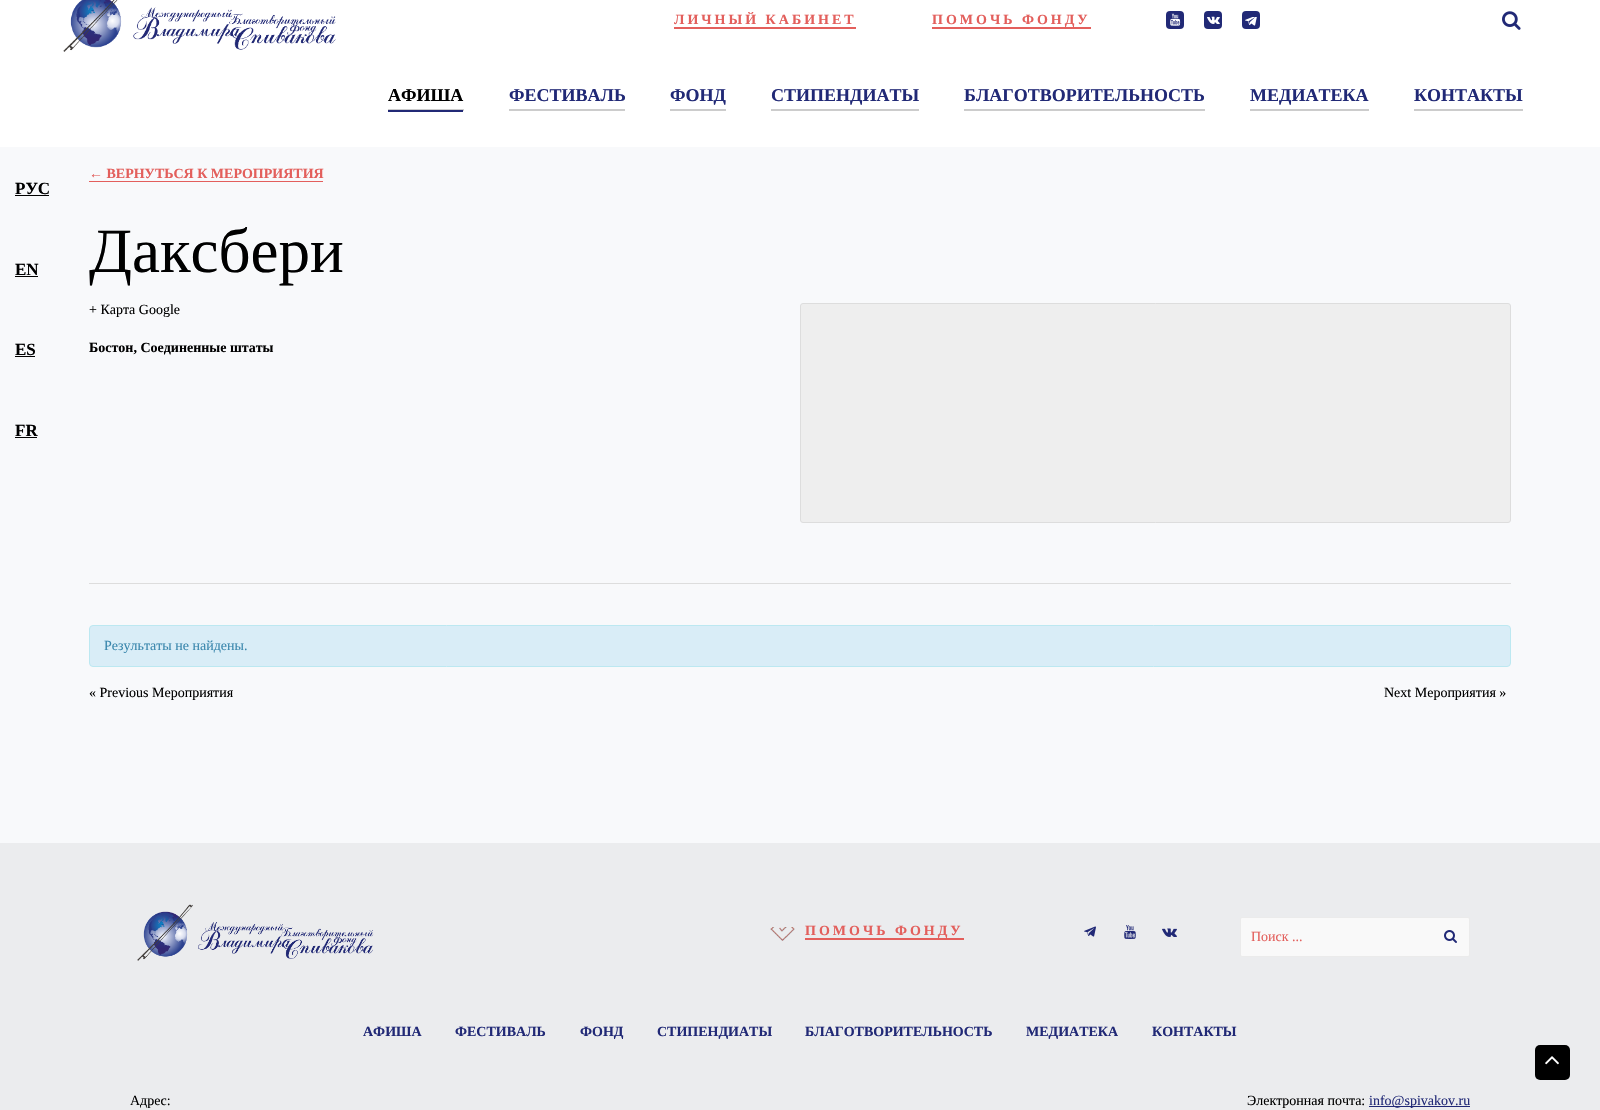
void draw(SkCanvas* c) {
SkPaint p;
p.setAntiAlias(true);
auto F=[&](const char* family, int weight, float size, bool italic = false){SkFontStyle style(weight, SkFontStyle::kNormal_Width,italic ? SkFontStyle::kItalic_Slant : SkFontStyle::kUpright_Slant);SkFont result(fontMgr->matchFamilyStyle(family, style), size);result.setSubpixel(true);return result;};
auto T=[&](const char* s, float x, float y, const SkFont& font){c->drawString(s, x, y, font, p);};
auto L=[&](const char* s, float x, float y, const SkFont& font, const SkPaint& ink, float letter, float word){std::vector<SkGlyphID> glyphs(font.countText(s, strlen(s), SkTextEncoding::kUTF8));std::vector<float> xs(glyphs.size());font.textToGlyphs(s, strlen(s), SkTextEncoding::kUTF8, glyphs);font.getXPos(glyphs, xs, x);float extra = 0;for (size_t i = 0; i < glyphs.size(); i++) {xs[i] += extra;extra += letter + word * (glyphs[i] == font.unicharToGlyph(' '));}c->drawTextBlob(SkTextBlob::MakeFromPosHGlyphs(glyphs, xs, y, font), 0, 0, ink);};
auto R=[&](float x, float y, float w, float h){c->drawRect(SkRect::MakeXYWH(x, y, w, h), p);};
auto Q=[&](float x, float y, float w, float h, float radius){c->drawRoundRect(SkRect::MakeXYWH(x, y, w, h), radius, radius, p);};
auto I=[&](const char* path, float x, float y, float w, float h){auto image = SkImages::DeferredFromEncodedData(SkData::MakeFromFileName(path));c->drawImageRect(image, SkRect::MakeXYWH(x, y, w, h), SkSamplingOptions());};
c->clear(0xfff8f9fb);
p.setColor(0xffffffff);
R(0,0,1600,147);
I("1.png",63,0,273,52);
auto f1 = F("Liberation Serif",700,14);
p.setColor(0xffe35f5c);
L("ЛИЧНЫЙ КАБИНЕТ",674,24,f1,p,3,0);
R(674,27,182,2);
L("ПОМОЧЬ ФОНДУ",932,24,f1,p,3,0);
R(932,27,159,2);
p.setColor(0xff212976);
Q(1166,11,18,18,4);
I("2.png",1170,13,11,13);
Q(1204,11,18,18,4);
I("3.png",1207,16,13,8);
Q(1242,11,18,18,4);
I("4.png",1245,17,12,9);
I("5.png",1502,11,19,19);
auto f2 = F("Liberation Serif",700,18);
p.setColor(0xff000000);
T("АФИША",388,101,f2);
p.setColor(0xffcccccc);
R(388,109,76,2);
p.setColor(0xff212976);
R(388,110,75,2);
T("ФЕСТИВАЛЬ",509,101,f2);
p.setColor(0xffcccccc);
R(509,109,116,2);
p.setColor(0xff212976);
T("ФОНД",670,101,f2);
p.setColor(0xffcccccc);
R(670,109,56,2);
p.setColor(0xff212976);
T("СТИПЕНДИАТЫ",771,101,f2);
p.setColor(0xffcccccc);
R(771,109,148,2);
p.setColor(0xff212976);
T("БЛАГОТВОРИТЕЛЬНОСТЬ",964,101,f2);
p.setColor(0xffcccccc);
R(964,109,241,2);
p.setColor(0xff212976);
T("МЕДИАТЕКА",1250,101,f2);
p.setColor(0xffcccccc);
R(1250,109,119,2);
p.setColor(0xff212976);
T("КОНТАКТЫ",1414,101,f2);
p.setColor(0xffcccccc);
R(1414,109,109,2);
auto f3 = F("Liberation Serif",700,17);
p.setColor(0xff000000);
T("РУС",15,194,f3);
R(15,195,34,1);
T("EN",15,275,f3);
R(15,276,23,1);
T("ES",15,355,f3);
R(15,356,20,1);
T("FR",15,436,f3);
R(15,437,22,1);
p.setColor(0xffe35f5c);
T("← ВЕРНУТЬСЯ К МЕРОПРИЯТИЯ",89,178,f1);
R(89,181,234,1);
p.setColor(0xffdddddd);
R(89,583,1422,1);
auto f4 = F("Liberation Serif",400,63);
p.setColor(0xff000000);
T("Даксбери",89,272,f4);
auto f5 = F("Liberation Serif",400,14);
T("+ Карта Google",89,314,f5);
T("Бостон, Соединенные штаты",89,352,f1);
p.setColor(0xffeeeeee);
c->drawRoundRect(SkRect::MakeXYWH(800.5,303.5,710,219),2.5,2.5,p);
p.setStroke(true);
p.setStrokeWidth(1);
p.setColor(0xffdddddd);
c->drawRoundRect(SkRect::MakeXYWH(800.5,303.5,710,219),2.5,2.5,p);
p.setStroke(false);
p.setColor(0xffd9edf7);
c->drawRoundRect(SkRect::MakeXYWH(89.5,625.5,1421,41),3.5,3.5,p);
p.setStroke(true);
p.setColor(0xffbce8f1);
c->drawRoundRect(SkRect::MakeXYWH(89.5,625.5,1421,41),3.5,3.5,p);
p.setStroke(false);
p.setColor(0xff3a87ad);
T("Результаты не найдены.",104,650,f5);
p.setColor(0xff000000);
T("« Previous Мероприятия",89,697,f5);
T("Next Мероприятия »",1384,697,f5);
p.setColor(0xffebecee);
R(0,843,1600,267);
I("6.png",137,904,237,57);
I("7.png",770,927,25,14);
p.setColor(0xffe35f5c);
L("ПОМОЧЬ ФОНДУ",805,935,f1,p,3,0);
R(805,938,159,2);
I("8.png",1084,926,12,11);
I("9.png",1124,925,12,14);
I("10.png",1162,928,15,9);
p.setColor(0xfff9f9f9);
c->drawRoundRect(SkRect::MakeXYWH(1240.5,917.5,229,39),1.5,1.5,p);
p.setStroke(true);
p.setColor(0xffebebeb);
c->drawRoundRect(SkRect::MakeXYWH(1240.5,917.5,229,39),1.5,1.5,p);
p.setStroke(false);
p.setColor(0xffe35f5c);
T("Поиск ...",1251,941,f5);
I("11.png",1444,930,13,13);
p.setColor(0xff212976);
T("АФИША",363,1036,f1);
T("ФЕСТИВАЛЬ",455,1036,f1);
T("ФОНД",580,1036,f1);
T("СТИПЕНДИАТЫ",657,1036,f1);
T("БЛАГОТВОРИТЕЛЬНОСТЬ",805,1036,f1);
T("МЕДИАТЕКА",1026,1036,f1);
T("КОНТАКТЫ",1152,1036,f1);
p.setColor(0xff000000);
T("Адрес:",130,1105,f5);
T("Электронная почта:",1247,1105,f5);
p.setColor(0xff212976);
R(1369,1106,101,1);
T("info@spivakov.ru",1369,1105,f5);
p.setColor(0xff000000);
Q(1535,1045,35,35,5);
I("12.png",1545,1056,14,9);
}
